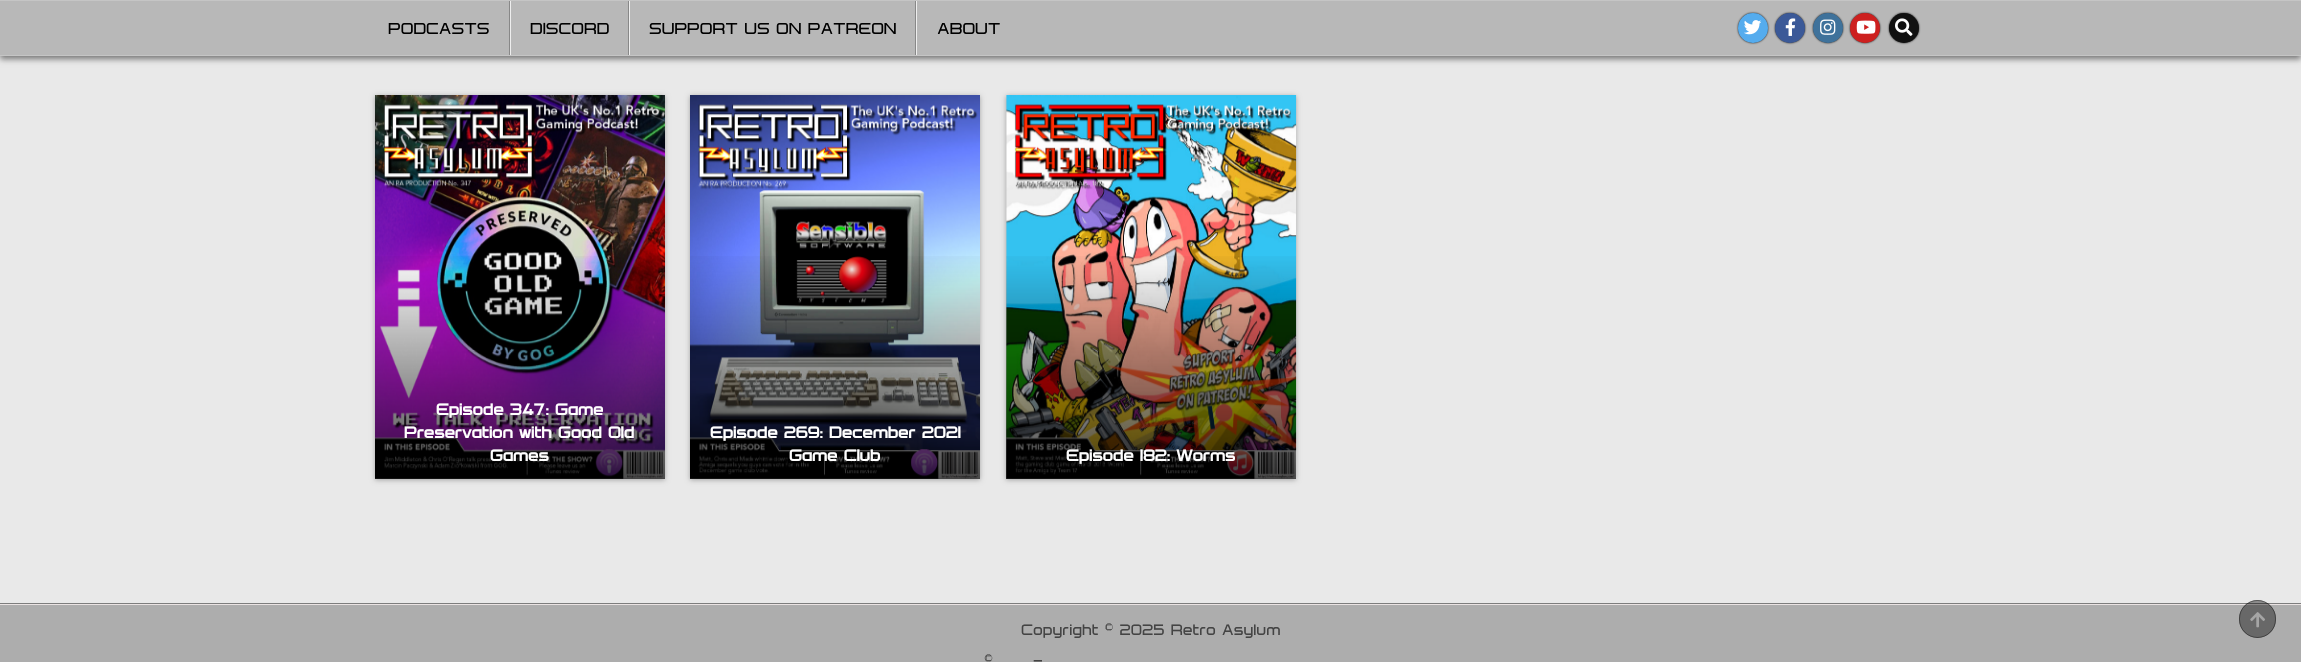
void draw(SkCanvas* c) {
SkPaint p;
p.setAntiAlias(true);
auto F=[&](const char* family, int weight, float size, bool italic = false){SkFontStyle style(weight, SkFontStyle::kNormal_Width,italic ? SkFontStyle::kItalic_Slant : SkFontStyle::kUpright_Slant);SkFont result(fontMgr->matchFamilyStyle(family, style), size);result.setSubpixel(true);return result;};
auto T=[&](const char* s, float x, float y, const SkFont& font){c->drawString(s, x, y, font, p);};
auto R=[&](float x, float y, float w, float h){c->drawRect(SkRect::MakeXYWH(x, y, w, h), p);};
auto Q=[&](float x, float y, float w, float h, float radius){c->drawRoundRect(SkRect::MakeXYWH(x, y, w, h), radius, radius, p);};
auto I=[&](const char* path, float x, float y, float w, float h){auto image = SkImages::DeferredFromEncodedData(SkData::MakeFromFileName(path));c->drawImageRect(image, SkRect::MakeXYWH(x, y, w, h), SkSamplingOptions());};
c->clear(0xffe9e9e9);
p.setColor(0x80000000);
p.setMaskFilter(SkMaskFilter::MakeBlur(kNormal_SkBlurStyle, 3));
c->drawRect(SkRect::MakeXYWH(0,3,2301,56),p);
p.setMaskFilter(nullptr);
p.setColor(0xffb8b8b8);
R(0,1,2301,54);
p.setColor(0xffc5c5c5);
R(0,0,2301,1);
R(0,55,2301,1);
p.setColor(0xff888888);
R(509,1,1,54);
auto f1 = F("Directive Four",400,16.25);
p.setColor(0xff000000);
T("PODCASTS",388,34,f1);
p.setColor(0xff888888);
R(628,1,1,54);
p.setColor(0xffeeeeee);
R(510,1,1,54);
p.setColor(0xff000000);
T("DISCORD",530,34,f1);
p.setColor(0xff888888);
R(915,1,1,54);
p.setColor(0xffeeeeee);
R(629,1,1,54);
p.setColor(0xff000000);
T("SUPPORT US ON PATREON",649,34,f1);
p.setColor(0xffeeeeee);
R(916,1,1,54);
p.setColor(0xff000000);
T("ABOUT",937,34,f1);
p.setMaskFilter(SkMaskFilter::MakeBlur(kNormal_SkBlurStyle, 1));
c->drawRoundRect(SkRect::MakeXYWH(1738,13,30,30),15,15,p);
p.setMaskFilter(nullptr);
p.setColor(0xff55acee);
c->drawCircle(1753,28,15,p);
I("1.png",1744,20,18,15);
p.setColor(0xff000000);
p.setMaskFilter(SkMaskFilter::MakeBlur(kNormal_SkBlurStyle, 1));
c->drawRoundRect(SkRect::MakeXYWH(1775,13,30,30),15,15,p);
p.setMaskFilter(nullptr);
p.setColor(0xff3b5998);
c->drawCircle(1790,28,15,p);
I("2.png",1785,18,11,18);
p.setColor(0xff000000);
p.setMaskFilter(SkMaskFilter::MakeBlur(kNormal_SkBlurStyle, 1));
c->drawRoundRect(SkRect::MakeXYWH(1813,13,30,30),15,15,p);
p.setMaskFilter(nullptr);
p.setColor(0xff3f729b);
c->drawCircle(1828,28,15,p);
I("3.png",1820,19,16,16);
p.setColor(0xff000000);
p.setMaskFilter(SkMaskFilter::MakeBlur(kNormal_SkBlurStyle, 1));
c->drawRoundRect(SkRect::MakeXYWH(1850,13,30,30),15,15,p);
p.setMaskFilter(nullptr);
p.setColor(0xffcd201f);
c->drawCircle(1865,28,15,p);
I("4.png",1856,20,20,14);
p.setColor(0xff000000);
p.setMaskFilter(SkMaskFilter::MakeBlur(kNormal_SkBlurStyle, 1));
c->drawRoundRect(SkRect::MakeXYWH(1889,13,30,30),15,15,p);
p.setMaskFilter(nullptr);
p.setColor(0xff111111);
c->drawCircle(1904,28,15,p);
I("5.png",1895,18,18,18);
p.setColor(0x4d000000);
p.setMaskFilter(SkMaskFilter::MakeBlur(kNormal_SkBlurStyle, 2.5));
c->drawRect(SkRect::MakeXYWH(375,96,290,384),p);
p.setMaskFilter(nullptr);
I("6.png",375,95,290,384);
{
const SkColor colors[] = {0xb3000000,0x00000000,0x00000000};
const float stops[] = {0,.6,1};
const SkPoint ends[] = {{520,479}, {520,95}};
p.setShader(SkGradientShader::MakeLinear(ends, colors, stops, 3, SkTileMode::kClamp));
p.setAlpha(255);
}
R(375,256,290,223);
auto f2 = F("Directive Four",700,16.25);
p.setShader(nullptr);
p.setColor(0xffffffff);
T("Episode 347: Game",436,415,f2);
T("Preservation with Good Old",404,438,f2);
T("Games",490,461,f2);
p.setColor(0x4d000000);
p.setMaskFilter(SkMaskFilter::MakeBlur(kNormal_SkBlurStyle, 2.5));
c->drawRect(SkRect::MakeXYWH(690,96,290,384),p);
p.setMaskFilter(nullptr);
I("7.png",690,95,290,384);
{
const SkColor colors[] = {0xb3000000,0x00000000,0x00000000};
const float stops[] = {0,.6,1};
const SkPoint ends[] = {{835,479}, {835,95}};
p.setShader(SkGradientShader::MakeLinear(ends, colors, stops, 3, SkTileMode::kClamp));
p.setAlpha(255);
}
R(690,256,290,223);
p.setShader(nullptr);
p.setColor(0xffffffff);
T("Episode 269: December 2021",710,438,f2);
T("Game Club",789,461,f2);
p.setColor(0x4d000000);
p.setMaskFilter(SkMaskFilter::MakeBlur(kNormal_SkBlurStyle, 2.5));
c->drawRect(SkRect::MakeXYWH(1006,96,290,384),p);
p.setMaskFilter(nullptr);
I("8.png",1006,95,291,384);
{
const SkColor colors[] = {0xb3000000,0x00000000,0x00000000};
const float stops[] = {0,.6,1};
const SkPoint ends[] = {{1151,479}, {1151,95}};
p.setShader(SkGradientShader::MakeLinear(ends, colors, stops, 3, SkTileMode::kClamp));
p.setAlpha(255);
}
R(1006,256,290,223);
p.setShader(nullptr);
p.setColor(0xffffffff);
T("Episode 182: Worms",1066,461,f2);
p.setColor(0xffadadad);
R(0,605,2301,57);
p.setColor(0xff7d7d7d);
R(0,603,2301,1);
p.setColor(0xffeae3e3);
R(0,604,2301,1);
p.setColor(0x66000000);
Q(2239,600,37,38,18.5);
p.setStroke(true);
p.setStrokeWidth(1);
c->drawRoundRect(SkRect::MakeXYWH(2239.5,600.5,36,37),18,18,p);
I("9.png",2250,612,15,16);
auto f3 = F("Directive Four",400,15.4);
p.setStroke(false);
p.setColor(0xff444444);
T("Copyright © 2025 Retro Asylum",1021,635,f3);
T("©",984,666,f3);
T("-",1033,666,f3);
}
